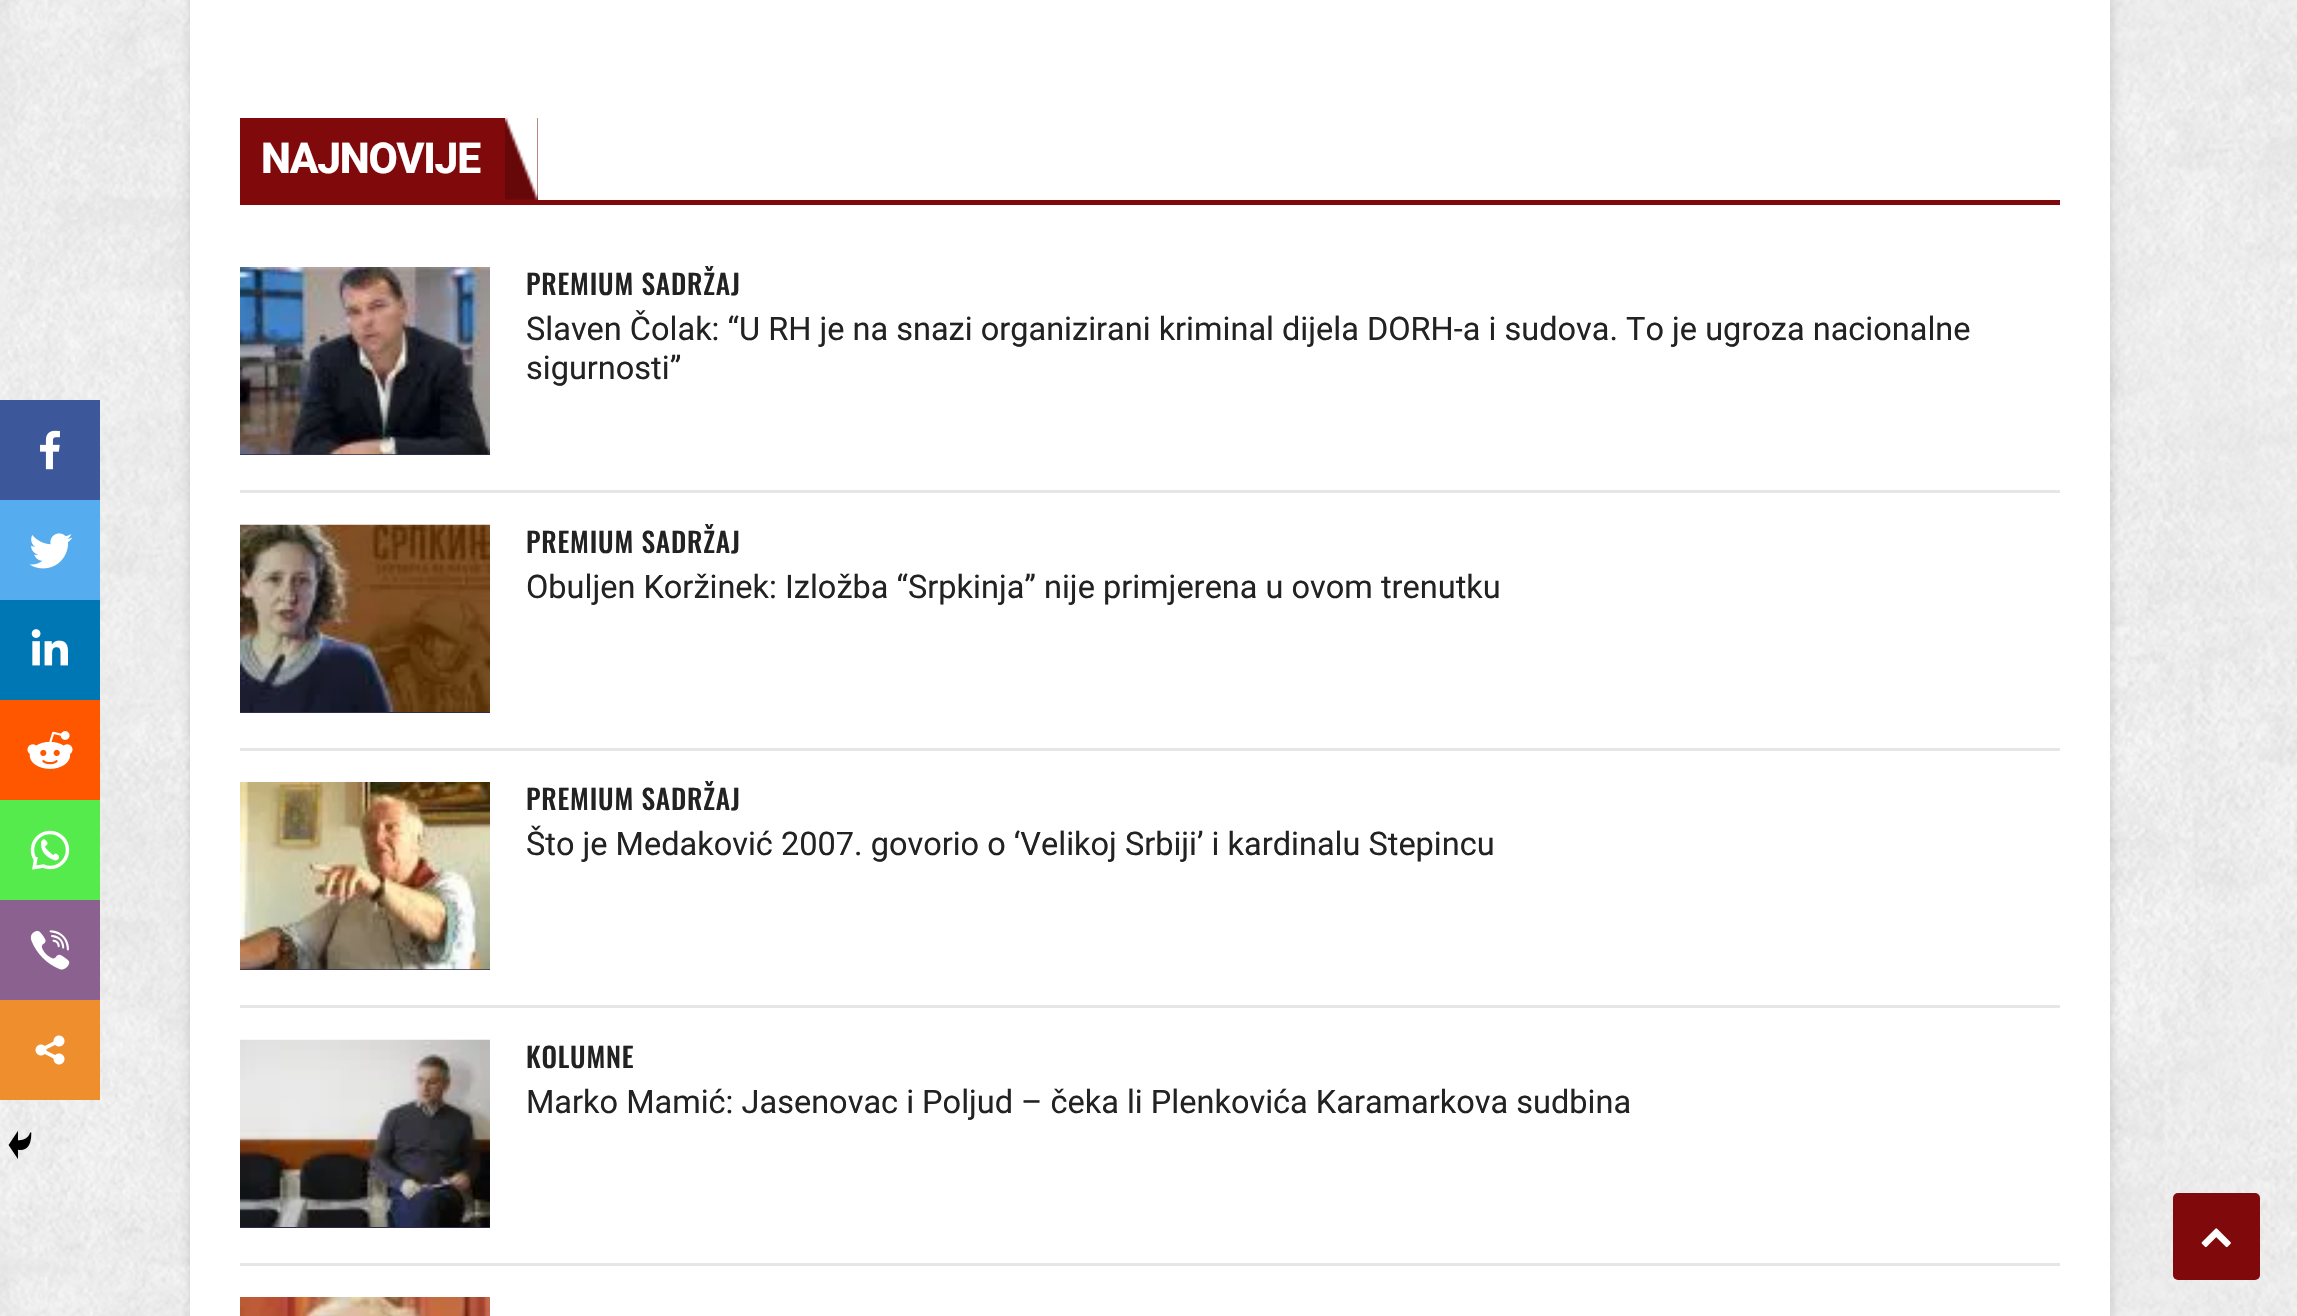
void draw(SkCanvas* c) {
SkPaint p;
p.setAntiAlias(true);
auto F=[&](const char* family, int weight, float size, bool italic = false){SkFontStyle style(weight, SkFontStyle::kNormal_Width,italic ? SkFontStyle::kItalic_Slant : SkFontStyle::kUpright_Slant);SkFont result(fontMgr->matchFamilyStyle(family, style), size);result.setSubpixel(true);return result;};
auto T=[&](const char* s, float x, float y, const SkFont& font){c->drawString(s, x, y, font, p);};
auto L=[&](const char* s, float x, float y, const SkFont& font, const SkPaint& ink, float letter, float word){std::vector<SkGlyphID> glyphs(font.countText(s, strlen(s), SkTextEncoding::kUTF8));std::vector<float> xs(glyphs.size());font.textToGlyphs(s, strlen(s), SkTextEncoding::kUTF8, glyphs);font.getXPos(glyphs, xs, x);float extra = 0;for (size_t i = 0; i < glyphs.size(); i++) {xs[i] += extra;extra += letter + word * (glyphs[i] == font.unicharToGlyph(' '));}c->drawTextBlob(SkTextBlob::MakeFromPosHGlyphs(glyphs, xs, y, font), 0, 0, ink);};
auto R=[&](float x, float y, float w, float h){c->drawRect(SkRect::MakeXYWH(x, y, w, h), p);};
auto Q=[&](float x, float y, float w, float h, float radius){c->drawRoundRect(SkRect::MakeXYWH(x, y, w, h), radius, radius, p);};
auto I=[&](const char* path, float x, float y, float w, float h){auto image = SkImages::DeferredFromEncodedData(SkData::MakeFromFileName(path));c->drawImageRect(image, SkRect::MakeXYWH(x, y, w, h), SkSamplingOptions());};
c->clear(0xffffffff);
I("1.png",0,0,2297,1316);
p.setColor(0x1a000000);
p.setMaskFilter(SkMaskFilter::MakeBlur(kNormal_SkBlurStyle, 4));
c->drawRect(SkRect::MakeXYWH(188,-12,1925,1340),p);
p.setMaskFilter(nullptr);
p.setColor(0xffffffff);
R(190,0,1920,1316);
p.setColor(0xff3c589a);
R(0,400,100,100);
I("2.png",40,430,20,40);
p.setColor(0xff55acee);
R(0,500,100,100);
I("3.png",29,533,44,36);
p.setColor(0xff0077b5);
R(0,600,100,100);
I("4.png",31,629,37,37);
p.setColor(0xffff5700);
R(0,700,100,100);
I("5.png",27,731,46,38);
p.setColor(0xff55eb4c);
R(0,800,100,100);
I("6.png",30,830,40,40);
p.setColor(0xff8b628f);
R(0,900,100,100);
I("7.png",30,930,40,40);
p.setColor(0xffee8e2d);
R(0,1000,100,100);
I("8.png",35,1035,30,30);
I("9.png",8,1131,24,28);
p.setColor(0xff80090b);
R(240,200,1820,5);
R(240,118,298,82);
I("10.png",505,117,33,83);
auto f1 = F("Roboto",800,42.5);
p.setColor(0xffffffff);
L("NAJNOVIJE",261,173,f1,p,-1.25,0);
p.setColor(0xffe6e6e6);
R(240,490,1820,3);
p.setColor(0xff2e2b4d);
R(240,454,250,1);
I("11.png",240,267,250,188);
auto f2 = F("Oswald",500,27.5);
p.setColor(0xff222222);
L("PREMIUM SADRŽAJ",526,295,f2,p,.8,0);
auto f3 = F("Roboto",400,32.5);
T("Slaven Čolak: “U RH je na snazi organizirani kriminal dijela DORH-a i sudova. To je ugroza nacionalne",526,340,f3);
T("sigurnosti”",526,379,f3);
p.setColor(0xffe6e6e6);
R(240,748,1820,3);
p.setColor(0xff2e2b4d);
R(240,712,250,1);
I("12.png",240,524,250,188);
p.setColor(0xff222222);
L("PREMIUM SADRŽAJ",526,553,f2,p,.8,0);
T("Obuljen Koržinek: Izložba “Srpkinja” nije primjerena u ovom trenutku",526,598,f3);
p.setColor(0xffe6e6e6);
R(240,1005,1820,3);
p.setColor(0xff2e2b4d);
R(240,969,250,1);
I("13.png",240,782,250,188);
p.setColor(0xff222222);
L("PREMIUM SADRŽAJ",526,810,f2,p,.8,0);
T("Što je Medaković 2007. govorio o ‘Velikoj Srbiji’ i kardinalu Stepincu",526,855,f3);
p.setColor(0xffe6e6e6);
R(240,1263,1820,3);
p.setColor(0xff2e2b4d);
R(240,1227,250,1);
I("14.png",240,1039,250,188);
p.setColor(0xff222222);
L("KOLUMNE",526,1068,f2,p,.8,0);
T("Marko Mamić: Jasenovac i Poljud – čeka li Plenkovića Karamarkova sudbina",526,1113,f3);
I("15.png",240,1297,250,19);
p.setColor(0xff80090b);
Q(2173,1193,87,87,5);
I("16.png",2201,1228,30,20);
}
